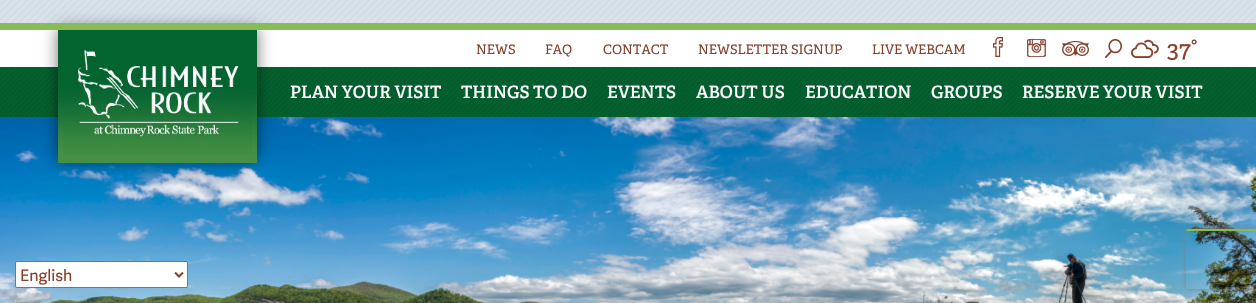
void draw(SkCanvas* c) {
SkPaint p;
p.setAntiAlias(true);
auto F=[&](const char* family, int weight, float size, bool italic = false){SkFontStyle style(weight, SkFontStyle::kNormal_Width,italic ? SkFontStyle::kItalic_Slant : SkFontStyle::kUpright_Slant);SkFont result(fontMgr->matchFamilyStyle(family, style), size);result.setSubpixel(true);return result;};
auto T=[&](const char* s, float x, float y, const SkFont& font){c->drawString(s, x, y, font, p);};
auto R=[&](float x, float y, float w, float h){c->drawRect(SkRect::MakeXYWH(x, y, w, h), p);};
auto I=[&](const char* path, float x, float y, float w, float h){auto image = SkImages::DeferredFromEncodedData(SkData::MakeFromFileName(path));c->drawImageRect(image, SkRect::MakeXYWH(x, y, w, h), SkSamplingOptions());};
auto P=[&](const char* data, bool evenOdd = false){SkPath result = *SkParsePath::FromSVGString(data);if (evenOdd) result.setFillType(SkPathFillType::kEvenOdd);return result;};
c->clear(0xffffffff);
I("1.png",0,0,1256,23);
I("8.png",0,67,1256,50);
I("9.png",0,117,1256,186);
p.setColor(0x8c000000);
p.setMaskFilter(SkMaskFilter::MakeBlur(kNormal_SkBlurStyle, 7.5));
c->drawRect(SkRect::MakeXYWH(58,28,199,133),p);
p.setMaskFilter(nullptr);
p.setColor(0xff86bd59);
R(0,23,1256,7);
I("2.png",58,30,199,133);
auto f1 = F("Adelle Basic",400,13);
p.setColor(0xff86412b);
T("NEWS",476,54,f1);
T("FAQ",545,54,f1);
T("CONTACT",603,54,f1);
T("NEWSLETTER SIGNUP",698,54,f1);
T("LIVE WEBCAM",872,54,f1);
I("3.png",993,37,10,20);
I("4.png",1027,39,19,18);
I("5.png",1062,41,27,15);
I("6.png",1105,39,17,19);
I("7.png",1131,39,28,19);
auto f2 = F("Adelle Basic",400,24);
T("37°",1167,58,f2);
auto f3 = F("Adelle",600,17);
p.setColor(0xffffffff);
T("PLAN YOUR VISIT",290,98,f3);
T("THINGS TO DO",461,98,f3);
T("EVENTS",607,98,f3);
T("ABOUT US",696,98,f3);
T("EDUCATION",805,98,f3);
T("GROUPS",931,98,f3);
T("RESERVE YOUR VISIT",1022,98,f3);
c->drawRoundRect(SkRect::MakeXYWH(15.5,261.5,172,26),1.5,1.5,p);
p.setStroke(true);
p.setStrokeWidth(1);
p.setColor(0xff767676);
c->drawRoundRect(SkRect::MakeXYWH(15.5,261.5,172,26),1.5,1.5,p);
p.setStrokeWidth(2);
p.setColor(0xff86412b);
c->drawPath(P("M175 272.5l4 4l4-4"),p);
auto f4 = F("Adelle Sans",400,16);
p.setStroke(false);
T("English",20,281,f4);
c->save();
c->clipPath(P("M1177 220h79v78h-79zm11 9h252c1 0 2 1 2 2v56c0 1-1 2-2 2h-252c-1 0-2-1-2-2v-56c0-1 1-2 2-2z",true),true);
p.setColor(0xff808080);
p.setMaskFilter(SkMaskFilter::MakeBlur(kNormal_SkBlurStyle, 2.5));
c->drawRoundRect(SkRect::MakeXYWH(1186,229,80,60),2,2,p);
p.setMaskFilter(nullptr);
c->restore();
p.setColor(0xff86bd59);
c->drawPath(P("M1188 229h68c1 0 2 1 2 2h-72c0-1 1-2 2-2z"),p);
}
